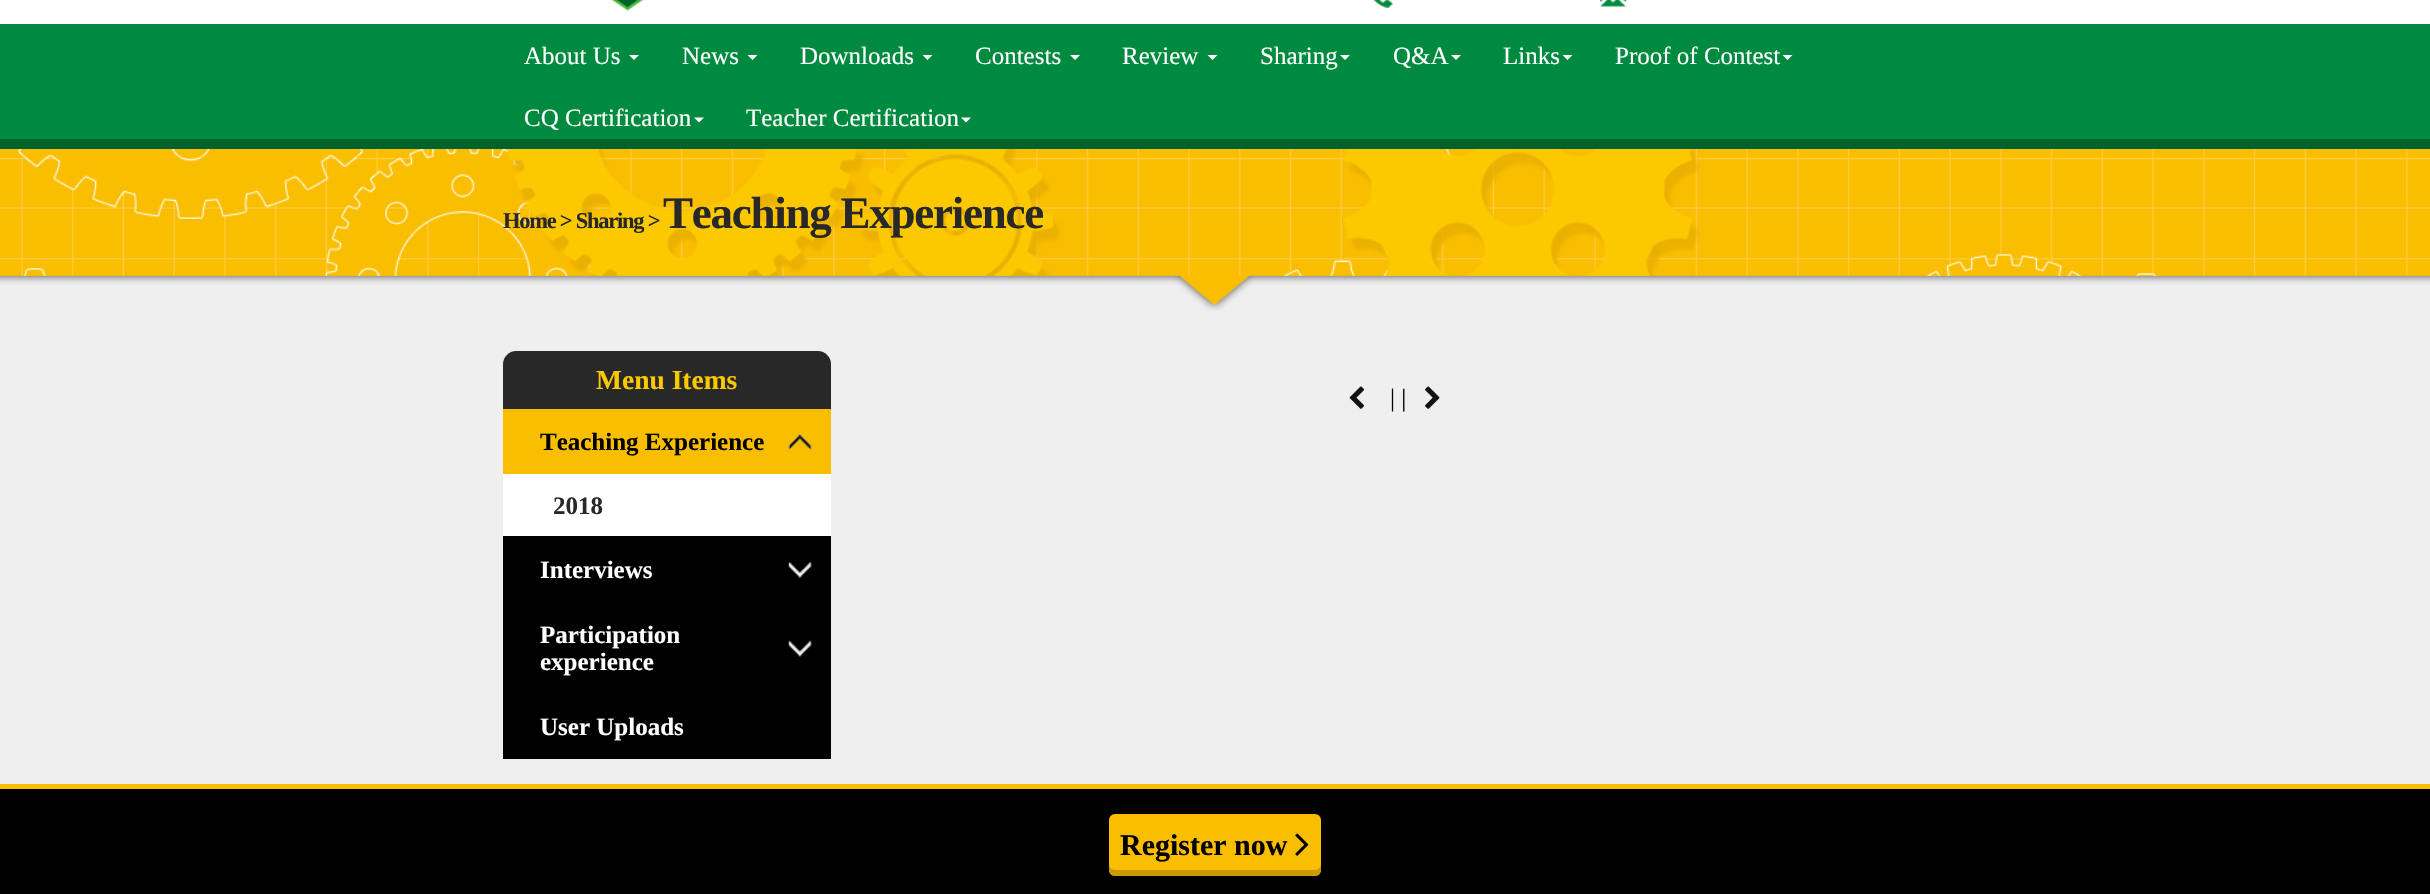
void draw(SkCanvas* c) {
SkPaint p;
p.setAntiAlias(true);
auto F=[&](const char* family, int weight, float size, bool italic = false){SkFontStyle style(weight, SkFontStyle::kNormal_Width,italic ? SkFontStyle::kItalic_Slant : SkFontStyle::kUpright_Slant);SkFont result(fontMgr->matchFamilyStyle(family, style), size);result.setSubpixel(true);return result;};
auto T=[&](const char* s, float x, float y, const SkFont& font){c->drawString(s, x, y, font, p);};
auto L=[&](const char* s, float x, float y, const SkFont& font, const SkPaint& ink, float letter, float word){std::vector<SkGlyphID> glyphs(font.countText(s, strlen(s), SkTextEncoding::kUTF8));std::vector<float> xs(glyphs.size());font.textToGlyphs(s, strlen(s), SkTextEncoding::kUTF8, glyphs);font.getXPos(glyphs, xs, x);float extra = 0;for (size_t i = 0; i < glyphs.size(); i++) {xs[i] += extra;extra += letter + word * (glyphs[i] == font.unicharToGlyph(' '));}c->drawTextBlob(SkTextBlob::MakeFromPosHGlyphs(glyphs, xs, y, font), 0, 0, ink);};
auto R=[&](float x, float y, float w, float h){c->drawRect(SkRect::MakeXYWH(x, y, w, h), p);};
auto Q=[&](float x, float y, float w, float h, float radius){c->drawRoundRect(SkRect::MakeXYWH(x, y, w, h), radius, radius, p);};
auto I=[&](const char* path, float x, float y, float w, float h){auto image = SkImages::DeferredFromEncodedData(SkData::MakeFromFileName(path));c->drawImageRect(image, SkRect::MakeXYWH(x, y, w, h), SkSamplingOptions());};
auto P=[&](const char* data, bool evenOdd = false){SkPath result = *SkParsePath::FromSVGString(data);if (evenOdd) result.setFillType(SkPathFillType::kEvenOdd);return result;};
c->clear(0xffffffff);
I("1.png",611,0,33,11);
I("2.png",1372,0,21,8);
I("3.png",1600,0,27,7);
p.setColor(0xff008a3f);
R(0,24,2430,115);
p.setColor(0xff00632d);
R(0,139,2430,10);
auto f1 = F("Liberation Serif",400,25);
p.setColor(0xffffffff);
T("About Us",524,64,f1);
c->drawPath(P("M629 55h10l-5 5z"),p);
T("News",682,64,f1);
c->drawPath(P("M747.5 55h10l-5 5z"),p);
T("Downloads",800,64,f1);
c->drawPath(P("M922.5 55h10l-5 5z"),p);
T("Contests",975,64,f1);
c->drawPath(P("M1070 55h10l-5 5z"),p);
T("Review",1122,64,f1);
c->drawPath(P("M1207.5 55h10l-5 5z"),p);
T("Sharing",1260,64,f1);
c->drawPath(P("M1340 55h10l-5 5z"),p);
T("Q&A",1393,64,f1);
c->drawPath(P("M1451 55h10l-5 5z"),p);
T("Links",1503,64,f1);
c->drawPath(P("M1562.5 55h10l-5 5z"),p);
T("Proof of Contest",1615,64,f1);
c->drawPath(P("M1782.5 55h10l-5 5z"),p);
T("CQ Certification",524,126,f1);
c->drawPath(P("M694 117.5h10l-5 5z"),p);
T("Teacher Certification",746,126,f1);
c->drawPath(P("M961 117.5h10l-5 5z"),p);
p.setColor(0xffefefef);
R(0,275,2430,509);
I("4.png",0,149,2430,162);
auto f2 = F("Liberation Serif",700,22.5);
p.setColor(0xff282828);
L("Home > Sharing >",503,228,f2,p,-1.25,0);
auto f3 = F("Liberation Serif",700,45);
L("Teaching Experience",663,228,f3,p,-1.25,0);
c->drawPath(P("M516 351h302c7 0 13 6 13 13v45h-328v-45c0-7 6-13 13-13z"),p);
auto f4 = F("Liberation Serif",700,27.5);
p.setColor(0xfffcc900);
T("Menu Items",596,389,f4);
p.setColor(0xfffabe00);
R(503,409,328,65);
I("5.png",788,434,24,17);
auto f5 = F("Liberation Serif",700,25);
p.setColor(0xff000000);
T("Teaching Experience",540,450,f5);
p.setColor(0xffffffff);
R(503,474,328,62);
p.setColor(0xff282828);
T("2018",553,514,f5);
p.setColor(0xff000000);
R(503,536,328,223);
I("6.png",788,561,24,17);
p.setColor(0xffffffff);
T("Interviews",540,578,f5);
I("7.png",788,640,24,17);
T("Participation",540,643,f5);
T("experience",540,670,f5);
T("User Uploads",540,735,f5);
I("8.png",1349,386,16,23);
p.setColor(0xff000000);
T("| |",1390,406,f1);
I("9.png",1425,386,15,23);
R(0,789,2430,105);
p.setColor(0xfffabe00);
R(0,784,2430,5);
Q(1109,814,212,62,6);
p.setColor(0xffca9a00);
c->drawPath(P("M1109 864v6c0 3 3 6 6 6h200c3 0 6-3 6-6v-6c0 3-3 6-6 6h-200c-3 0-6-3-6-6z"),p);
auto f6 = F("Liberation Serif",700,30);
p.setColor(0xff000000);
T("Register now",1120,855,f6);
I("10.png",1295,833,14,23);
}
